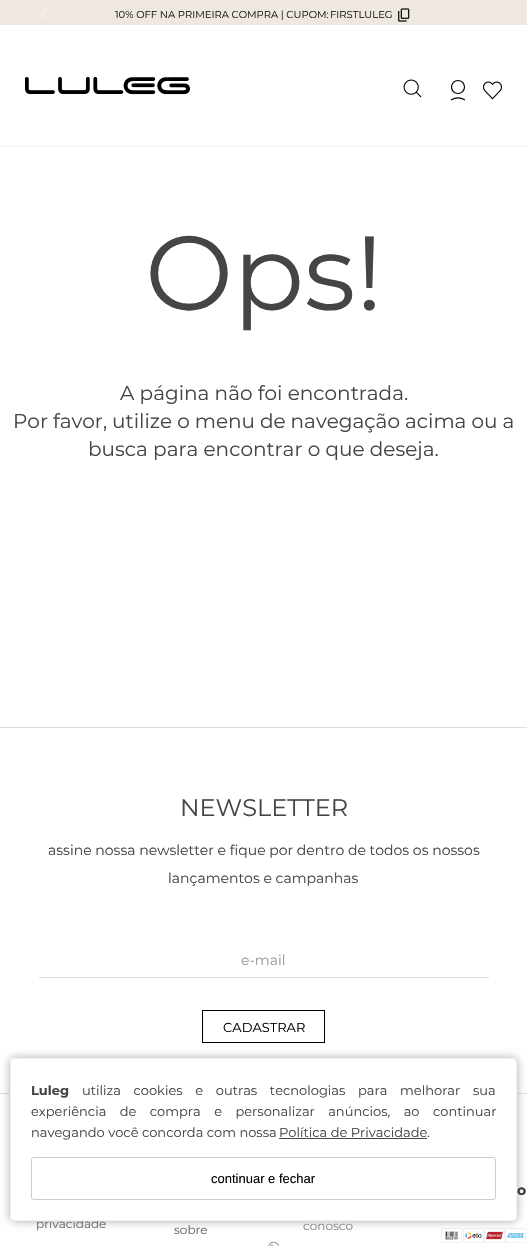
void draw(SkCanvas* c) {
SkPaint p;
p.setAntiAlias(true);
auto F=[&](const char* family, int weight, float size, bool italic = false){SkFontStyle style(weight, SkFontStyle::kNormal_Width,italic ? SkFontStyle::kItalic_Slant : SkFontStyle::kUpright_Slant);SkFont result(fontMgr->matchFamilyStyle(family, style), size);result.setSubpixel(true);return result;};
auto T=[&](const char* s, float x, float y, const SkFont& font){c->drawString(s, x, y, font, p);};
auto L=[&](const char* s, float x, float y, const SkFont& font, const SkPaint& ink, float letter, float word){std::vector<SkGlyphID> glyphs(font.countText(s, strlen(s), SkTextEncoding::kUTF8));std::vector<float> xs(glyphs.size());font.textToGlyphs(s, strlen(s), SkTextEncoding::kUTF8, glyphs);font.getXPos(glyphs, xs, x);float extra = 0;for (size_t i = 0; i < glyphs.size(); i++) {xs[i] += extra;extra += letter + word * (glyphs[i] == font.unicharToGlyph(' '));}c->drawTextBlob(SkTextBlob::MakeFromPosHGlyphs(glyphs, xs, y, font), 0, 0, ink);};
auto R=[&](float x, float y, float w, float h){c->drawRect(SkRect::MakeXYWH(x, y, w, h), p);};
auto I=[&](const char* path, float x, float y, float w, float h){auto image = SkImages::DeferredFromEncodedData(SkData::MakeFromFileName(path));c->drawImageRect(image, SkRect::MakeXYWH(x, y, w, h), SkSamplingOptions());};
auto P=[&](const char* data, bool evenOdd = false){SkPath result = *SkParsePath::FromSVGString(data);if (evenOdd) result.setFillType(SkPathFillType::kEvenOdd);return result;};
c->clear(0xffffffff);
p.setColor(0xffeee8e0);
R(0,0,527,25);
I("1.png",41,8,6,12);
auto f1 = F("Montserrat",400,10);
p.setColor(0xff1a1a1a);
T("10% OFF NA PRIMEIRA COMPRA | CUPOM:",115,18,f1);
T("FIRSTLULEG",330,18,f1);
I("2.png",398,8,12,14);
p.setColor(0xfff2f2f2);
R(0,146,527,1);
I("3.png",25,76,165,19);
I("4.png",403,79,19,19);
p.setStroke(true);
p.setStrokeWidth(1.2);
p.setColor(0xff000000);
c->drawCircle(458,87,6.5,p);
c->drawPath(P("M451 100c5-3 9-3 14 0"),p);
I("5.png",483,81,19,19);
auto f2 = F("Montserrat",400,105);
p.setStroke(false);
p.setColor(0xff454545);
T("Ops!",145,310,f2);
auto f3 = F("Montserrat",400,20);
T("A página não foi encontrada.",120,400,f3);
L("Por favor, utilize o menu de navegação acima ou a",13,428,f3,p,0,-.25);
T("busca para encontrar o que deseja.",88,456,f3);
p.setColor(0xffdddddd);
R(0,727,527,1);
auto f4 = F("Montserrat",400,24);
p.setColor(0xff454545);
T("NEWSLETTER",180,816,f4);
auto f5 = F("Montserrat",400,14);
T("assine nossa newsletter e fique por dentro de todos os nossos",48,855,f5);
T("lançamentos e campanhas",168,883,f5);
p.setColor(0xffdddddd);
R(39,977,450,1);
p.setColor(0xff999999);
T("e-mail",241,965,f5);
p.setStroke(true);
p.setStrokeWidth(1);
p.setColor(0xff000000);
c->drawRect(SkRect::MakeXYWH(202.5,1010.5,122,32),p);
auto f6 = F("Montserrat",400,13);
p.setStroke(false);
T("CADASTRAR",223,1032,f6);
p.setColor(0xffdddddd);
R(0,1093,527,1);
I("6.png",441,1228,21,15);
I("7.png",463,1228,21,15);
I("8.png",484,1228,21,15);
I("9.png",505,1228,21,15);
c->save();
c->clipPath(P("M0 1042h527v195h-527zm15 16h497c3 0 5 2 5 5v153c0 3-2 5-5 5h-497c-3 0-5-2-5-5v-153c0-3 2-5 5-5z",true),true);
p.setColor(0xffaaaaaa);
p.setMaskFilter(SkMaskFilter::MakeBlur(kNormal_SkBlurStyle, 5));
c->drawRoundRect(SkRect::MakeXYWH(10,1058,507,163),5,5,p);
p.setMaskFilter(nullptr);
c->restore();
auto f7 = F("Montserrat",400,12);
p.setColor(0xff666666);
T("privacidade",36,1228,f7);
p.setColor(0xfaffffff);
c->drawRoundRect(SkRect::MakeXYWH(10.5,1058.5,506,162),4.5,4.5,p);
p.setStroke(true);
p.setColor(0xfff2f2f2);
c->drawRoundRect(SkRect::MakeXYWH(10.5,1058.5,506,162),4.5,4.5,p);
auto f8 = F("Montserrat",700,13);
p.setStroke(false);
p.setColor(0xff454545);
T("Luleg",31,1095,f8);
L("utiliza cookies e outras tecnologias para melhorar sua",82,1095,f6,p,0,9.25);
L("experiência de compra e personalizar anúncios, ao continuar",31,1116,f6,p,0,10);
T("navegando você concorda com nossa",31,1137,f6);
T("Política de Privacidade",279,1137,f6);
R(279,1138,148,1);
T(".",427,1137,f6);
p.setStroke(true);
p.setColor(0xffcccccc);
c->drawRoundRect(SkRect::MakeXYWH(31.5,1157.5,464,42),2.5,2.5,p);
auto f9 = F("Liberation Sans",400,13);
p.setStroke(false);
p.setColor(0xff000000);
T("continuar e fechar",211,1183,f9);
auto f10 = F("Montserrat",700,14);
p.setColor(0xff3a3a3a);
T("o",517,1195,f10);
p.setColor(0xff666666);
T("sobre",174,1234,f7);
p.setColor(0xff888888);
T("conosco",303,1230,f7);
I("10.png",268,1241,11,5);
}
